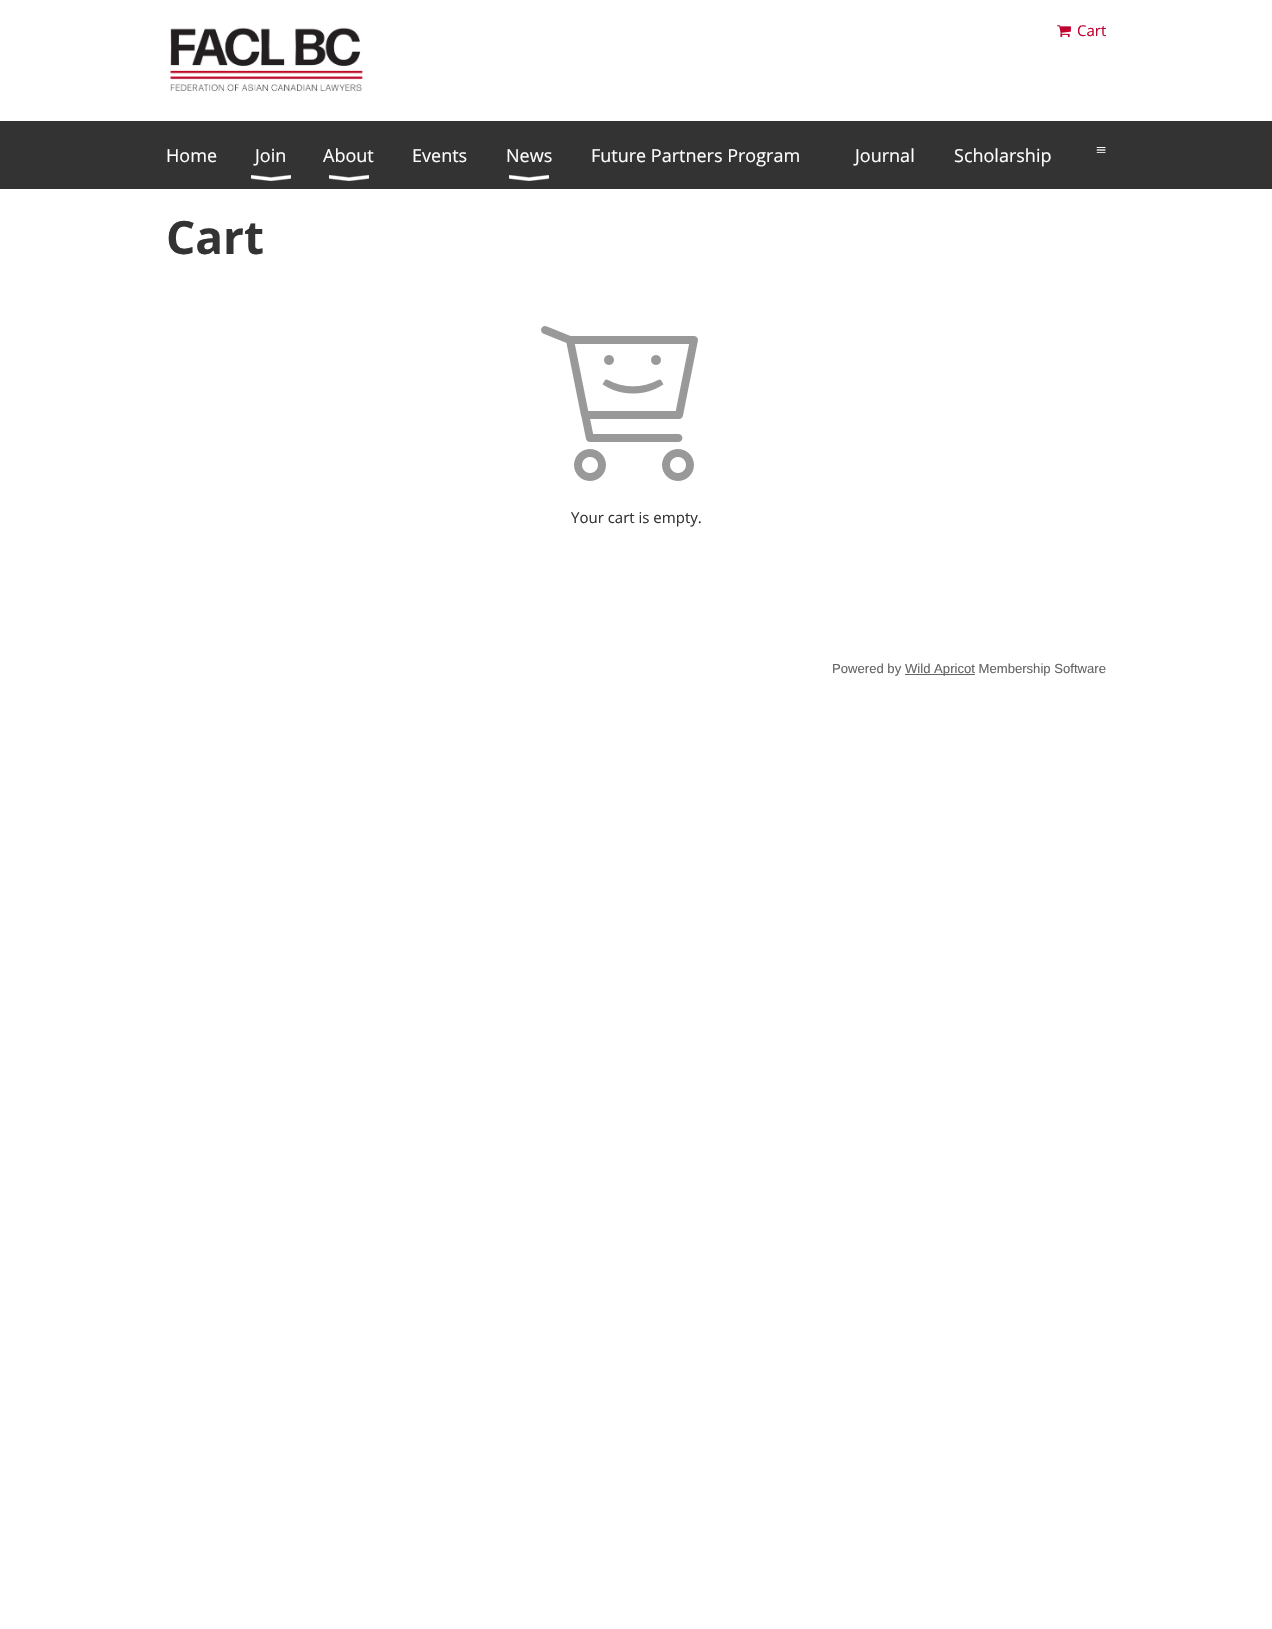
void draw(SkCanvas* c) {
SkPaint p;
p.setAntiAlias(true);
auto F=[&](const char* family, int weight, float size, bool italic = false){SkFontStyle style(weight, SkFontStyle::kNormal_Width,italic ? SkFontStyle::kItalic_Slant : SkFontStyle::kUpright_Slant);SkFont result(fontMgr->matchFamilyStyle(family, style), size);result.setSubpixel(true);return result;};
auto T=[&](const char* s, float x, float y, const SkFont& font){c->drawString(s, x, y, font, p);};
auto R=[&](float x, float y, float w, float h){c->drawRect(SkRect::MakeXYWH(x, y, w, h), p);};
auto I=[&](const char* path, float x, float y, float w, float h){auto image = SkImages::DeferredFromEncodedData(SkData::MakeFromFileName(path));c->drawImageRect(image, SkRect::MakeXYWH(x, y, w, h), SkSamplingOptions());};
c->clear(0xffffffff);
I("1.png",170,27,193,65);
I("2.png",1057,25,14,13);
auto f1 = F("Open Sans",400,15);
p.setColor(0xffc10230);
T("Cart",1077,36,f1);
p.setColor(0xff333333);
R(0,121,1272,68);
auto f2 = F("Open Sans",400,18);
p.setColor(0xffffffff);
T("Home",166,162,f2);
T("Join",255,162,f2);
I("3.png",251,175,40,6);
T("About",323,162,f2);
I("3.png",329,175,40,6);
T("Events",412,162,f2);
T("News",506,162,f2);
I("3.png",509,175,40,6);
T("Future Partners Program",591,162,f2);
T("Journal",855,162,f2);
T("Scholarship",954,162,f2);
auto f3 = F("Liberation Serif",400,18);
T("≡",1096,156,f3);
auto f4 = F("Open Sans",700,46);
p.setColor(0xff333333);
T("Cart",166,254,f4);
I("4.png",541,326,157,155);
T("Your cart is empty.",571,523,f1);
auto f5 = F("Liberation Sans",400,13.1);
p.setColor(0xff646464);
T("Powered by",832,673,f5);
R(905,674,70,1);
T("Wild Apricot Membership Software",905,673,f5);
}
